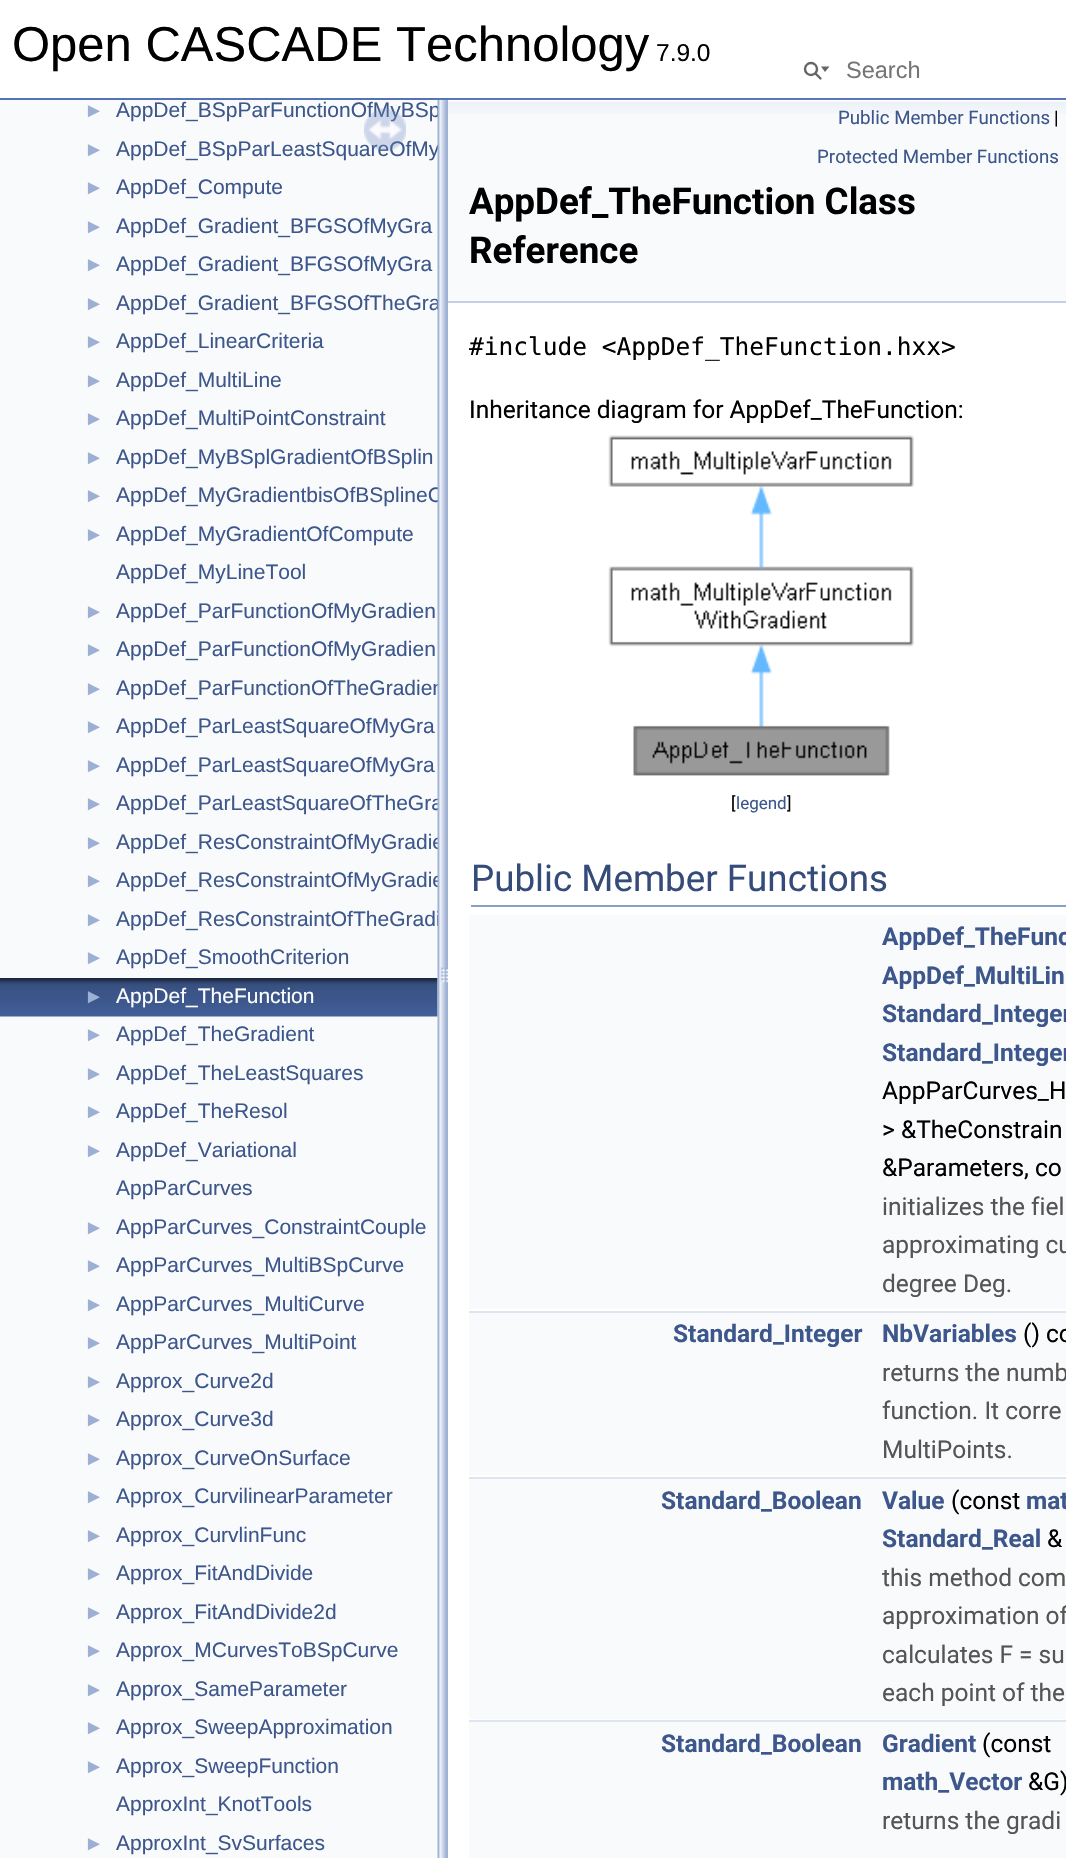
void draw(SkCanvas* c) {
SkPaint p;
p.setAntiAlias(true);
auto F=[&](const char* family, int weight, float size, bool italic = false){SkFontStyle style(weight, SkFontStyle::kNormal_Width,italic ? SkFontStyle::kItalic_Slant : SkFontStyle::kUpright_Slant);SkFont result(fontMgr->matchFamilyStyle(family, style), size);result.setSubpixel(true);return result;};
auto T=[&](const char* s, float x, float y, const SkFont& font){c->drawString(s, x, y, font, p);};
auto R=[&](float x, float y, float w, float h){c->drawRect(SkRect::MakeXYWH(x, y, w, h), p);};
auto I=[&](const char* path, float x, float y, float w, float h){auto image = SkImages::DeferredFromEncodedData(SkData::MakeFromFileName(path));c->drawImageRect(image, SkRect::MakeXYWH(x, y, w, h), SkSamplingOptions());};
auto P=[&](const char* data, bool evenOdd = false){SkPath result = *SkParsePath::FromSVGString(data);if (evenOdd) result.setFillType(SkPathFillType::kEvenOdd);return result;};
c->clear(0xffffffff);
p.setColor(0xff5373b4);
R(0,98,1066,2);
auto f1 = F("Liberation Sans",400,49);
p.setColor(0xff000000);
T("Open CASCADE Technology",12,61,f1);
auto f2 = F("Liberation Sans",400,24.5);
T("7.9.0",656,61,f2);
p.setStroke(true);
p.setStrokeWidth(2.4);
p.setColor(0xff656565);
c->drawCircle(811,69,6,p);
p.setStroke(false);
c->drawPath(P("M821 66.5l4 5.5l4.5-5.5z"),p);
p.setStroke(true);
p.setStrokeCap(SkPaint::kRound_Cap);
c->drawPath(P("M815.5 73.5l5 5"),p);
auto f3 = F("Liberation Sans",400,23.5);
p.setStroke(false);
p.setColor(0xff757575);
T("Search",846,78,f3);
p.setColor(0xfff9fafc);
R(0,100,438,1758);
auto f4 = F("Liberation Sans",400,20);
p.setColor(0xff9cafd4);
T("►",84,117,f4);
auto f5 = F("Liberation Sans",400,21);
p.setColor(0xff3d578c);
T("AppDef_BSpParFunctionOfMyBSp",116,117,f5);
p.setColor(0xff9cafd4);
T("►",84,156,f4);
p.setColor(0xff3d578c);
T("AppDef_BSpParLeastSquareOfMy",116,156,f5);
p.setColor(0xff9cafd4);
T("►",84,194,f4);
p.setColor(0xff3d578c);
T("AppDef_Compute",116,194,f5);
p.setColor(0xff9cafd4);
T("►",84,233,f4);
p.setColor(0xff3d578c);
T("AppDef_Gradient_BFGSOfMyGra",116,233,f5);
p.setColor(0xff9cafd4);
T("►",84,271,f4);
p.setColor(0xff3d578c);
T("AppDef_Gradient_BFGSOfMyGra",116,271,f5);
p.setColor(0xff9cafd4);
T("►",84,310,f4);
p.setColor(0xff3d578c);
T("AppDef_Gradient_BFGSOfTheGra",116,310,f5);
p.setColor(0xff9cafd4);
T("►",84,348,f4);
p.setColor(0xff3d578c);
T("AppDef_LinearCriteria",116,348,f5);
p.setColor(0xff9cafd4);
T("►",84,387,f4);
p.setColor(0xff3d578c);
T("AppDef_MultiLine",116,387,f5);
p.setColor(0xff9cafd4);
T("►",84,425,f4);
p.setColor(0xff3d578c);
T("AppDef_MultiPointConstraint",116,425,f5);
p.setColor(0xff9cafd4);
T("►",84,464,f4);
p.setColor(0xff3d578c);
T("AppDef_MyBSplGradientOfBSplin",116,464,f5);
p.setColor(0xff9cafd4);
T("►",84,502,f4);
p.setColor(0xff3d578c);
T("AppDef_MyGradientbisOfBSplineC",116,502,f5);
p.setColor(0xff9cafd4);
T("►",84,541,f4);
p.setColor(0xff3d578c);
T("AppDef_MyGradientOfCompute",116,541,f5);
T("AppDef_MyLineTool",116,579,f5);
p.setColor(0xff9cafd4);
T("►",84,618,f4);
p.setColor(0xff3d578c);
T("AppDef_ParFunctionOfMyGradien",116,618,f5);
p.setColor(0xff9cafd4);
T("►",84,656,f4);
p.setColor(0xff3d578c);
T("AppDef_ParFunctionOfMyGradien",116,656,f5);
p.setColor(0xff9cafd4);
T("►",84,695,f4);
p.setColor(0xff3d578c);
T("AppDef_ParFunctionOfTheGradien",116,695,f5);
p.setColor(0xff9cafd4);
T("►",84,733,f4);
p.setColor(0xff3d578c);
T("AppDef_ParLeastSquareOfMyGra",116,733,f5);
p.setColor(0xff9cafd4);
T("►",84,772,f4);
p.setColor(0xff3d578c);
T("AppDef_ParLeastSquareOfMyGra",116,772,f5);
p.setColor(0xff9cafd4);
T("►",84,810,f4);
p.setColor(0xff3d578c);
T("AppDef_ParLeastSquareOfTheGra",116,810,f5);
p.setColor(0xff9cafd4);
T("►",84,849,f4);
p.setColor(0xff3d578c);
T("AppDef_ResConstraintOfMyGradie",116,849,f5);
p.setColor(0xff9cafd4);
T("►",84,887,f4);
p.setColor(0xff3d578c);
T("AppDef_ResConstraintOfMyGradie",116,887,f5);
p.setColor(0xff9cafd4);
T("►",84,926,f4);
p.setColor(0xff3d578c);
T("AppDef_ResConstraintOfTheGradi",116,926,f5);
p.setColor(0xff9cafd4);
T("►",84,964,f4);
p.setColor(0xff3d578c);
T("AppDef_SmoothCriterion",116,964,f5);
I("1.png",0,978,438,39);
p.setColor(0xff9cafd4);
T("►",84,1003,f4);
p.setColor(0xffffffff);
T("AppDef_TheFunction",116,1003,f5);
p.setColor(0xff9cafd4);
T("►",84,1041,f4);
p.setColor(0xff3d578c);
T("AppDef_TheGradient",116,1041,f5);
p.setColor(0xff9cafd4);
T("►",84,1080,f4);
p.setColor(0xff3d578c);
T("AppDef_TheLeastSquares",116,1080,f5);
p.setColor(0xff9cafd4);
T("►",84,1118,f4);
p.setColor(0xff3d578c);
T("AppDef_TheResol",116,1118,f5);
p.setColor(0xff9cafd4);
T("►",84,1157,f4);
p.setColor(0xff3d578c);
T("AppDef_Variational",116,1157,f5);
T("AppParCurves",116,1195,f5);
p.setColor(0xff9cafd4);
T("►",84,1234,f4);
p.setColor(0xff3d578c);
T("AppParCurves_ConstraintCouple",116,1234,f5);
p.setColor(0xff9cafd4);
T("►",84,1272,f4);
p.setColor(0xff3d578c);
T("AppParCurves_MultiBSpCurve",116,1272,f5);
p.setColor(0xff9cafd4);
T("►",84,1311,f4);
p.setColor(0xff3d578c);
T("AppParCurves_MultiCurve",116,1311,f5);
p.setColor(0xff9cafd4);
T("►",84,1349,f4);
p.setColor(0xff3d578c);
T("AppParCurves_MultiPoint",116,1349,f5);
p.setColor(0xff9cafd4);
T("►",84,1388,f4);
p.setColor(0xff3d578c);
T("Approx_Curve2d",116,1388,f5);
p.setColor(0xff9cafd4);
T("►",84,1426,f4);
p.setColor(0xff3d578c);
T("Approx_Curve3d",116,1426,f5);
p.setColor(0xff9cafd4);
T("►",84,1465,f4);
p.setColor(0xff3d578c);
T("Approx_CurveOnSurface",116,1465,f5);
p.setColor(0xff9cafd4);
T("►",84,1503,f4);
p.setColor(0xff3d578c);
T("Approx_CurvilinearParameter",116,1503,f5);
p.setColor(0xff9cafd4);
T("►",84,1542,f4);
p.setColor(0xff3d578c);
T("Approx_CurvlinFunc",116,1542,f5);
p.setColor(0xff9cafd4);
T("►",84,1580,f4);
p.setColor(0xff3d578c);
T("Approx_FitAndDivide",116,1580,f5);
p.setColor(0xff9cafd4);
T("►",84,1619,f4);
p.setColor(0xff3d578c);
T("Approx_FitAndDivide2d",116,1619,f5);
p.setColor(0xff9cafd4);
T("►",84,1657,f4);
p.setColor(0xff3d578c);
T("Approx_MCurvesToBSpCurve",116,1657,f5);
p.setColor(0xff9cafd4);
T("►",84,1696,f4);
p.setColor(0xff3d578c);
T("Approx_SameParameter",116,1696,f5);
p.setColor(0xff9cafd4);
T("►",84,1734,f4);
p.setColor(0xff3d578c);
T("Approx_SweepApproximation",116,1734,f5);
p.setColor(0xff9cafd4);
T("►",84,1773,f4);
p.setColor(0xff3d578c);
T("Approx_SweepFunction",116,1773,f5);
T("ApproxInt_KnotTools",116,1811,f5);
p.setColor(0xff9cafd4);
T("►",84,1850,f4);
p.setColor(0xff3d578c);
T("ApproxInt_SvSurfaces",116,1850,f5);
I("2.png",364,108,42,43);
I("3.png",437,99,11,1759);
p.setColor(0xfff9fafc);
R(448,114,618,187);
I("4.png",448,99,618,15);
p.setColor(0xffc4cfe5);
R(448,301,618,2);
auto f6 = F("Roboto",400,18.7);
p.setColor(0xff3d578c);
T("Public Member Functions",838,124,f6);
p.setColor(0xff000000);
T("|",1054,124,f6);
p.setColor(0xff3d578c);
T("Protected Member Functions",817,163,f6);
auto f7 = F("Roboto",700,36.75);
p.setColor(0xff000000);
T("AppDef_TheFunction Class",469,214,f7);
T("Reference",469,263,f7);
auto f8 = F("DejaVu Sans Mono",400,24.5);
T("#include <AppDef_TheFunction.hxx>",469,355,f8);
auto f9 = F("Roboto",400,24.5);
T("Inheritance diagram for AppDef_TheFunction:",469,418,f9);
I("5.png",608,435,306,341);
auto f10 = F("Roboto",400,17);
T("[",731,809,f10);
p.setColor(0xff3d578c);
T("legend",736,809,f10);
p.setColor(0xff000000);
T("]",787,809,f10);
p.setColor(0xff879ecb);
R(471,905,595,2);
auto f11 = F("Roboto",400,36.75);
p.setColor(0xff354c7b);
T("Public Member Functions",471,891,f11);
p.setColor(0xfff9fafc);
R(469,915,597,272);
auto f12 = F("Roboto",700,24.5);
p.setColor(0xff3d578c);
T("AppDef_TheFunc",882,945,f12);
T("AppDef_MultiLin",882,984,f12);
T("Standard_Integer",882,1022,f12);
T("Standard_Integer",882,1061,f12);
p.setColor(0xff000000);
T("AppParCurves_H",882,1099,f9);
T("> &TheConstrain",882,1138,f9);
T("&Parameters, co",882,1176,f9);
p.setColor(0xfff9fafc);
R(469,1187,597,122);
p.setColor(0xff555555);
T("initializes the fiel",882,1215,f9);
T("approximating cu",882,1253,f9);
T("degree Deg.",882,1292,f9);
p.setColor(0xffdee4f0);
R(469,1311,597,2);
p.setColor(0xfff9fafc);
R(469,1313,597,40);
p.setColor(0xff3d578c);
T("Standard_Integer",673,1342,f12);
T("NbVariables",882,1342,f12);
p.setColor(0xff000000);
T("() co",1023,1342,f9);
p.setColor(0xfff9fafc);
R(469,1353,597,122);
p.setColor(0xff555555);
T("returns the numb",882,1381,f9);
T("function. It corre",882,1419,f9);
T("MultiPoints.",882,1458,f9);
p.setColor(0xffdee4f0);
R(469,1477,597,2);
p.setColor(0xfff9fafc);
R(469,1479,597,79);
p.setColor(0xff3d578c);
T("Standard_Boolean",661,1509,f12);
T("Value",882,1509,f12);
p.setColor(0xff000000);
T("(const",951,1509,f9);
p.setColor(0xff3d578c);
T("mat",1026,1509,f12);
T("Standard_Real",882,1547,f12);
p.setColor(0xff000000);
T("&",1047,1547,f9);
p.setColor(0xfff9fafc);
R(469,1558,597,161);
p.setColor(0xff555555);
T("this method com",882,1586,f9);
T("approximation of",882,1624,f9);
T("calculates F = su",882,1663,f9);
T("each point of the",882,1701,f9);
p.setColor(0xffdee4f0);
R(469,1720,597,2);
p.setColor(0xfff9fafc);
R(469,1722,597,79);
p.setColor(0xff3d578c);
T("Standard_Boolean",661,1752,f12);
T("Gradient",882,1752,f12);
p.setColor(0xff000000);
T("(const",982,1752,f9);
p.setColor(0xff3d578c);
T("math_Vector",882,1790,f12);
p.setColor(0xff000000);
T("&G)",1028,1790,f9);
p.setColor(0xfff9fafc);
R(469,1801,597,57);
p.setColor(0xff555555);
T("returns the gradi",882,1829,f9);
}
